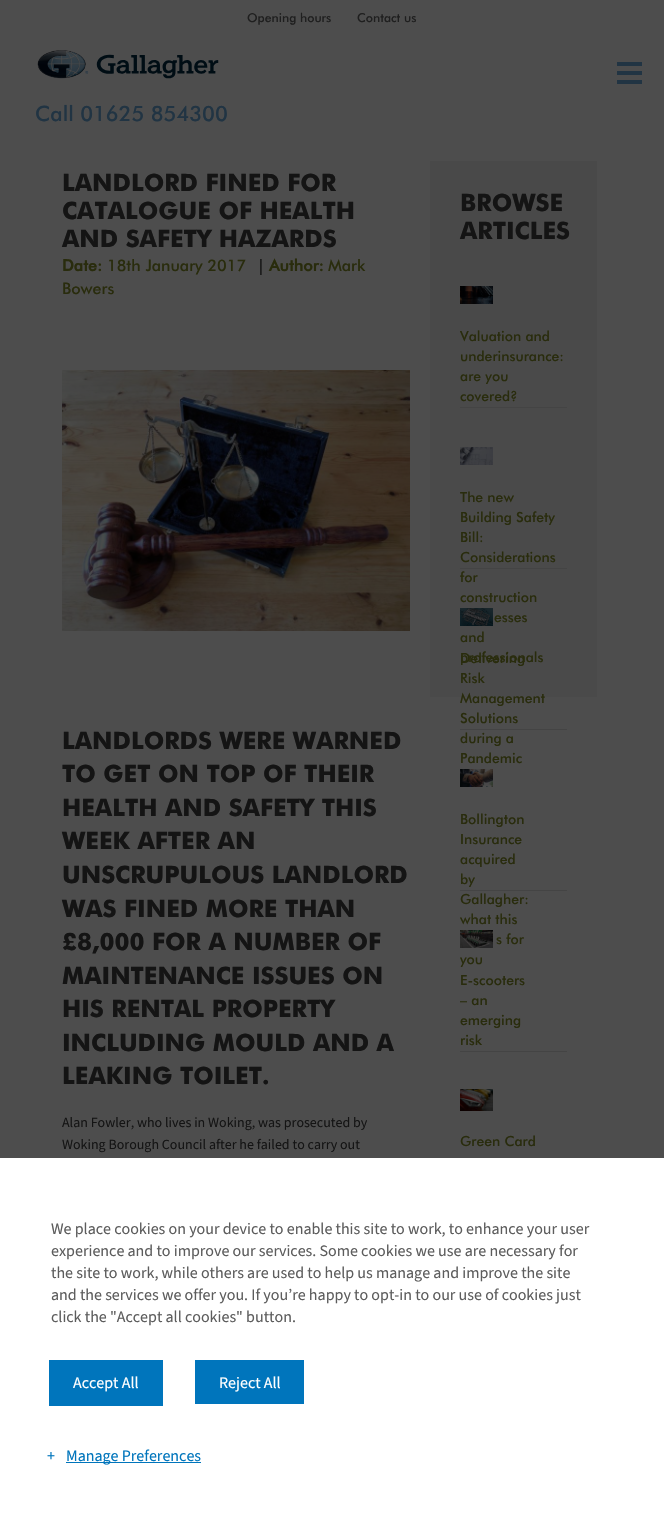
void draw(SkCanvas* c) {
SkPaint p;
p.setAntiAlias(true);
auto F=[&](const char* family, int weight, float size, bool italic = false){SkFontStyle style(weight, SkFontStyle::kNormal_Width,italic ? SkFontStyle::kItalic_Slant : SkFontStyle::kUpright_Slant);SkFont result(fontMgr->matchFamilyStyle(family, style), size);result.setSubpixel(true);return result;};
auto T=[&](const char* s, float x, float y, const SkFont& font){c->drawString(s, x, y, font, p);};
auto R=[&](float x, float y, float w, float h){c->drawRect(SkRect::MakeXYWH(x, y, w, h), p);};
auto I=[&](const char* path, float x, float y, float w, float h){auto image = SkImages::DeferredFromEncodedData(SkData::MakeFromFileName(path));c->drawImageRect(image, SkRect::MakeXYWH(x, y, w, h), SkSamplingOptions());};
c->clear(0xff4d4d4d);
auto f1 = F("Futura",500,12.25);
p.setColor(0xff1f1f1f);
T("Opening hours",247,22,f1);
T("Contact us",357,22,f1);
I("1.png",37,50,182,29);
p.setColor(0xff213443);
R(617,71,25,4);
R(617,62,25,4);
R(617,80,25,4);
auto f2 = F("Futura",500,21.25);
T("Call 01625 854300",35,121,f2);
auto f3 = F("Futura",700,24);
p.setColor(0xff141414);
T("LANDLORD FINED FOR",62,191,f3);
T("CATALOGUE OF HEALTH",62,219,f3);
T("AND SAFETY HAZARDS",62,247,f3);
auto f4 = F("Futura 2",700,16);
p.setColor(0xff292c0d);
T("Date:",62,271,f4);
auto f5 = F("Futura",500,16);
T("18th January 2017",107,271,f5);
auto f6 = F("Source Sans Pro",400,16);
p.setColor(0xff000000);
T("|",259,271,f6);
p.setColor(0xff292c0d);
T("Author:",269,271,f4);
T("Mark",328,271,f5);
T("Bowers",62,294,f5);
I("2.png",62,370,348,261);
p.setColor(0xff141414);
T("LANDLORDS WERE WARNED",62,749,f3);
T("TO GET ON TOP OF THEIR",62,782,f3);
T("HEALTH AND SAFETY THIS",62,816,f3);
T("WEEK AFTER AN",62,849,f3);
T("UNSCRUPULOUS LANDLORD",62,883,f3);
T("WAS FINED MORE THAN",62,917,f3);
T("£8,000 FOR A NUMBER OF",62,950,f3);
T("MAINTENANCE ISSUES ON",62,984,f3);
T("HIS RENTAL PROPERTY",62,1017,f3);
T("INCLUDING MOULD AND A",62,1051,f3);
T("LEAKING TOILET.",62,1084,f3);
auto f7 = F("Source Sans Pro",400,14);
T("Alan Fowler, who lives in Woking, was prosecuted by",62,1127,f7);
T("Woking Borough Council after he failed to carry out",62,1149,f7);
{
const SkColor colors[] = {0xff494949,0xff4d4d4d};
const float stops[] = {0,1};
const SkPoint ends[] = {{513,161}, {514,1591}};
p.setShader(SkGradientShader::MakeLinear(ends, colors, stops, 2, SkTileMode::kClamp));
p.setAlpha(255);
}
R(430,161,167,536);
p.setShader(nullptr);
p.setColor(0xff141414);
T("BROWSE",460,211,f3);
T("ARTICLES",460,239,f3);
p.setColor(0xff444444);
R(460,407,107,1);
I("3.png",460,286,33,18);
auto f8 = F("Futura",500,14);
p.setColor(0xff292c0d);
T("Valuation and",460,341,f8);
T("underinsurance:",460,361,f8);
T("are you",460,381,f8);
T("covered?",460,401,f8);
p.setColor(0xff444444);
R(460,568,107,1);
I("4.png",460,447,33,18);
p.setColor(0xff292c0d);
T("The new",460,502,f8);
T("Building Safety",460,522,f8);
T("Bill:",460,542,f8);
T("Considerations",460,562,f8);
T("for",460,582,f8);
T("construction",460,602,f8);
T("esses",494,622,f8);
T("and",460,642,f8);
T("professionals",460,662,f8);
p.setColor(0xff444444);
R(460,729,107,1);
I("5.png",460,608,33,18);
p.setColor(0xff292c0d);
T("Delivering",460,663,f8);
T("Risk",460,683,f8);
T("Management",460,703,f8);
T("Solutions",460,723,f8);
T("during a",460,743,f8);
T("Pandemic",460,763,f8);
p.setColor(0xff444444);
R(460,890,107,1);
I("6.png",460,769,33,18);
p.setColor(0xff292c0d);
T("Bollington",460,824,f8);
T("Insurance",460,844,f8);
T("acquired",460,864,f8);
T("by",460,884,f8);
T("Gallagher:",460,904,f8);
T("what this",460,924,f8);
T("s for",496,944,f8);
T("you",460,964,f8);
p.setColor(0xff444444);
R(460,1051,107,1);
I("7.png",460,930,33,18);
p.setColor(0xff292c0d);
T("E-scooters",460,985,f8);
T("– an",460,1005,f8);
T("emerging",460,1025,f8);
T("risk",460,1045,f8);
I("8.png",460,1089,33,22);
T("Green Card",460,1146,f8);
p.setColor(0xffffffff);
R(0,1158,664,376);
auto f9 = F("Source Sans 3",400,16);
p.setColor(0xff5d5d5d);
T("We place cookies on your device to enable this site to work, to enhance your user",51,1234,f9);
T("experience and to improve our services. Some cookies we use are necessary for",51,1256,f9);
T("the site to work, while others are used to help us manage and improve the site",51,1278,f9);
T("and the services we offer you. If you’re happy to opt-in to our use of cookies just",51,1300,f9);
T("click the \"Accept all cookies\" button.",51,1322,f9);
p.setColor(0xff0075bc);
R(49,1360,114,46);
p.setColor(0xffffffff);
T("Accept All",73,1388,f9);
p.setColor(0xff0075bc);
R(195,1360,109,44);
p.setColor(0xffffffff);
T("Reject All",219,1388,f6);
p.setColor(0xff0075bc);
T("+",47,1461,f9);
R(66,1462,135,1);
T("Manage Preferences",66,1461,f9);
}
